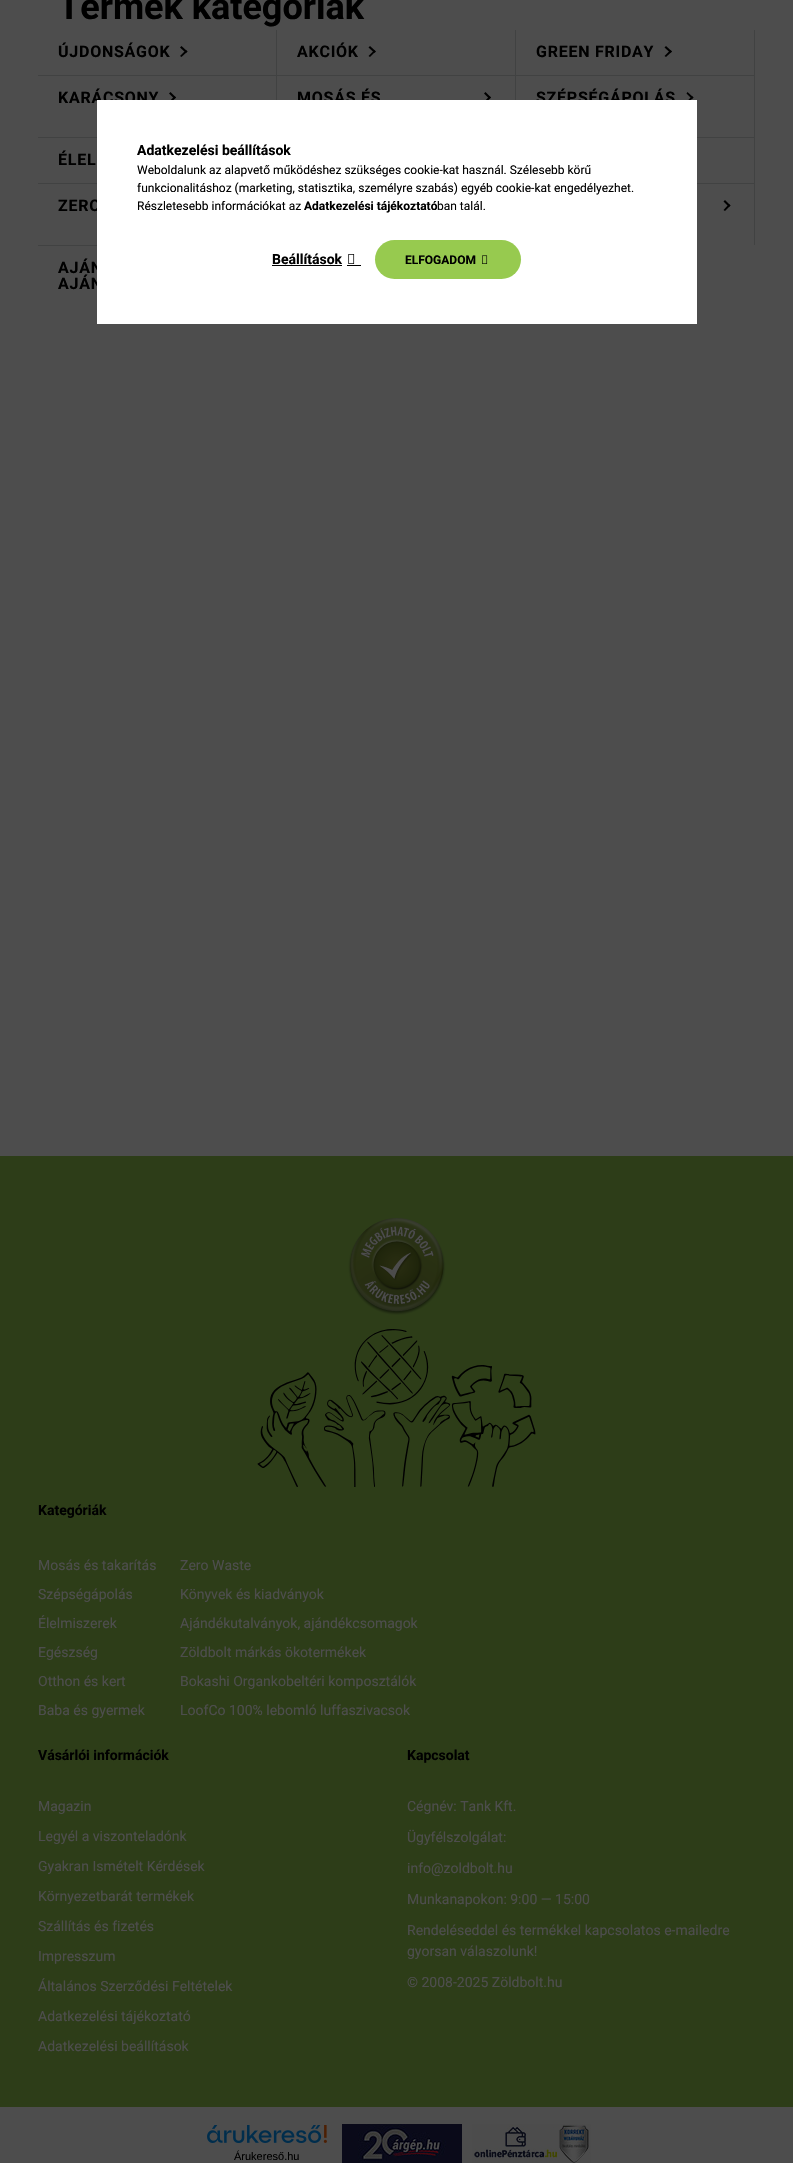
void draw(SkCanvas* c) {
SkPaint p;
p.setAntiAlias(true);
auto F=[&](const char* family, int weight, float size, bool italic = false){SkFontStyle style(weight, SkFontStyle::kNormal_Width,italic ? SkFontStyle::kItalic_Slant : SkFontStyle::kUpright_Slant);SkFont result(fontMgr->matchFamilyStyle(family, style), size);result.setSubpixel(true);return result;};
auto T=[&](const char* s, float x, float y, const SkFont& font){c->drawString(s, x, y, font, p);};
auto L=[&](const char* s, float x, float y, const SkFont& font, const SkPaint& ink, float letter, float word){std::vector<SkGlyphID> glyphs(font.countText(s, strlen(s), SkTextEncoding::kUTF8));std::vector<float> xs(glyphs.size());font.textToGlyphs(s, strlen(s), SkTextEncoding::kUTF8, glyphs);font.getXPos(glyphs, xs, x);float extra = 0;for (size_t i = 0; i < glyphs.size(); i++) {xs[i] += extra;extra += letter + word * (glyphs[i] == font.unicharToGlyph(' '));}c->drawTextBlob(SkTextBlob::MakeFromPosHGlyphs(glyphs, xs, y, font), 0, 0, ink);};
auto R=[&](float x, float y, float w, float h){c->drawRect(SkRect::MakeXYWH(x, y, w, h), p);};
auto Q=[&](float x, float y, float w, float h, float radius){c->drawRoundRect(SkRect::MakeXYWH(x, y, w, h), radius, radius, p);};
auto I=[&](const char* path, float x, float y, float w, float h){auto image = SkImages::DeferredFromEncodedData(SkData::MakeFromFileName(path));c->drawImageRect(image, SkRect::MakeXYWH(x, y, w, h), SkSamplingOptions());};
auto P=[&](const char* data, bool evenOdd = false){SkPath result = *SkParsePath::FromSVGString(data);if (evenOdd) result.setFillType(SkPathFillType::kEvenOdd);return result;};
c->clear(0xff4d4d4d);
auto f1 = F("Roboto",700,36);
p.setColor(0xff000000);
T("Termék kategóriák",58,19,f1);
p.setColor(0xff414242);
R(276,29,1,46);
R(515,29,1,46);
R(754,29,1,46);
p.setColor(0xff4d4d4d);
R(276,29,480,1);
auto f2 = F("Roboto",700,16);
p.setColor(0xff000000);
L("ÚJDONSÁGOK",58,57,f2,p,.75,0);
c->drawPath(P("M180 56l6-6l1.5 1.5l-6 5.5z"),p);
c->drawPath(P("M181.5 46l6 5.5l-1.5 1.5l-6-5.5z"),p);
L("AKCIÓK",297,57,f2,p,.75,0);
c->drawPath(P("M368.5 56l6-6l1 1.5l-5.5 5.5z"),p);
c->drawPath(P("M370 46l6 5.5l-1.5 1.5l-6-5.5z"),p);
L("GREEN FRIDAY",536,57,f2,p,.75,0);
c->drawPath(P("M664.5 56l6-6l1.5 1.5l-6 5.5z"),p);
c->drawPath(P("M666 46l6 5.5l-1.5 1.5l-6-5.5z"),p);
p.setColor(0xff414242);
R(38,75,717,1);
p.setColor(0xff000000);
L("KARÁCSONY",58,103,f2,p,.75,0);
c->drawPath(P("M169 102l5.5-6l1.5 1.5l-5.5 5.5z"),p);
c->drawPath(P("M170.5 92l5.5 5.5l-1.5 1.5l-5.5-5.5z"),p);
p.setColor(0xff414242);
R(276,75,1,25);
p.setColor(0xff000000);
L("MOSÁS ÉS",297,103,f2,p,.75,0);
c->drawPath(P("M484 102l5.5-6l1.5 1.5l-5.5 5.5z"),p);
c->drawPath(P("M485.5 92l5.5 5.5l-1.5 1.5l-5.5-5.5z"),p);
p.setColor(0xff414242);
R(515,75,1,25);
p.setColor(0xff000000);
L("SZÉPSÉGÁPOLÁS",536,103,f2,p,.75,0);
c->drawPath(P("M686.5 102l5.5-6l1.5 1.5l-6 5.5z"),p);
c->drawPath(P("M687.5 92l6 5.5l-1.5 1.5l-5.5-5.5z"),p);
p.setColor(0xff414242);
R(754,75,1,62);
R(38,137,59,1);
p.setColor(0xff000000);
L("ÉLEL",58,165,f2,p,.75,0);
p.setColor(0xff414242);
R(697,137,58,1);
R(754,137,1,46);
R(38,183,59,1);
p.setColor(0xff000000);
L("ZERO",58,211,f2,p,.75,0);
p.setColor(0xff414242);
R(697,183,58,1);
p.setColor(0xff000000);
c->drawPath(P("M723.5 210l5.5-6l1.5 1.5l-5.5 5.5z"),p);
c->drawPath(P("M725 200l5.5 5.5l-1.5 1.5l-5.5-5.5z"),p);
p.setColor(0xff414242);
R(754,183,1,62);
R(38,245,59,1);
p.setColor(0xff000000);
L("AJÁN",58,273,f2,p,.75,0);
L("AJÁN",58,289,f2,p,.75,0);
p.setColor(0xff2d3d18);
R(0,1156,793,951);
I("1.png",348,1218,98,97);
I("2.png",257,1329,279,158);
auto f3 = F("Roboto",700,14);
p.setColor(0xff000000);
T("Kategóriák",38,1515,f3);
auto f4 = F("Roboto",400,14);
p.setColor(0xff4d4d4d);
T("Mosás és takarítás",38,1570,f4);
T("Zero Waste",180,1570,f4);
T("Szépségápolás",38,1599,f4);
T("Könyvek és kiadványok",180,1599,f4);
T("Élelmiszerek",38,1628,f4);
T("Ajándékutalványok, ajándékcsomagok",180,1628,f4);
T("Egészség",38,1657,f4);
T("Zöldbolt márkás ökotermékek",180,1657,f4);
T("Otthon és kert",38,1686,f4);
T("Bokashi Organkobeltéri komposztálók",180,1686,f4);
T("Baba és gyermek",38,1715,f4);
T("LoofCo 100% lebomló luffaszivacsok",180,1715,f4);
p.setColor(0xff000000);
T("Vásárlói információk",38,1760,f3);
p.setColor(0xff4d4d4d);
T("Magazin",38,1811,f4);
T("Legyél a viszonteladónk",38,1841,f4);
T("Gyakran Ismételt Kérdések",38,1871,f4);
T("Környezetbarát termékek",38,1901,f4);
T("Szállítás és fizetés",38,1931,f4);
T("Impresszum",38,1961,f4);
T("Általános Szerződési Feltételek",38,1991,f4);
T("Adatkezelési tájékoztató",38,2021,f4);
T("Adatkezelési beállítások",38,2051,f4);
p.setColor(0xff000000);
T("Kapcsolat",407,1760,f3);
p.setColor(0xff4d4d4d);
T("Cégnév: Tank Kft.",407,1811,f4);
T("Ügyfélszolgálat:",407,1842,f4);
T("info@zoldbolt.hu",407,1873,f4);
T("Munkanapokon: 9:00 — 15:00",407,1904,f4);
T("Rendeléseddel és termékkel kapcsolatos e-mailedre",407,1935,f4);
T("gyorsan válaszolunk!",407,1956,f4);
T("© 2008-2025 Zöldbolt.hu",407,1987,f4);
p.setColor(0xffffffff);
R(97,100,600,224);
p.setColor(0xff000000);
T("Adatkezelési beállítások",137,155,f3);
auto f5 = F("Roboto",400,12);
T("Weboldalunk az alapvető működéshez szükséges cookie-kat használ. Szélesebb körű",137,174,f5);
T("funkcionalitáshoz (marketing, statisztika, személyre szabás) egyéb cookie-kat engedélyezhet.",137,192,f5);
T("Részletesebb információkat az",137,210,f5);
auto f6 = F("Roboto",700,12);
T("Adatkezelési tájékoztató",304,210,f6);
T("ban talál.",437,210,f5);
T("Beállítások",272,264,f3);
R(272,265,70,1);
I("3.png",348,254,7,10);
R(347,265,14,1);
{
const SkColor colors[] = {0xff97ca4f,0xff000000};
const float stops[] = {.33,.67};
const SkPoint ends[] = {{375,260}, {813,260}};
p.setShader(SkGradientShader::MakeLinear(ends, colors, stops, 2, SkTileMode::kClamp));
p.setAlpha(255);
}
Q(375,240,146,39,19.5);
p.setShader(nullptr);
p.setColor(0xff000000);
T("ELFOGADOM",405,264,f6);
I("4.png",482,255,6,9);
I("5.png",207,2125,120,18);
auto f7 = F("Liberation Sans",400,11);
T("Árukereső.hu",234,2160,f7);
I("6.png",342,2124,120,39);
I("7.png",472,2124,119,39);
}
